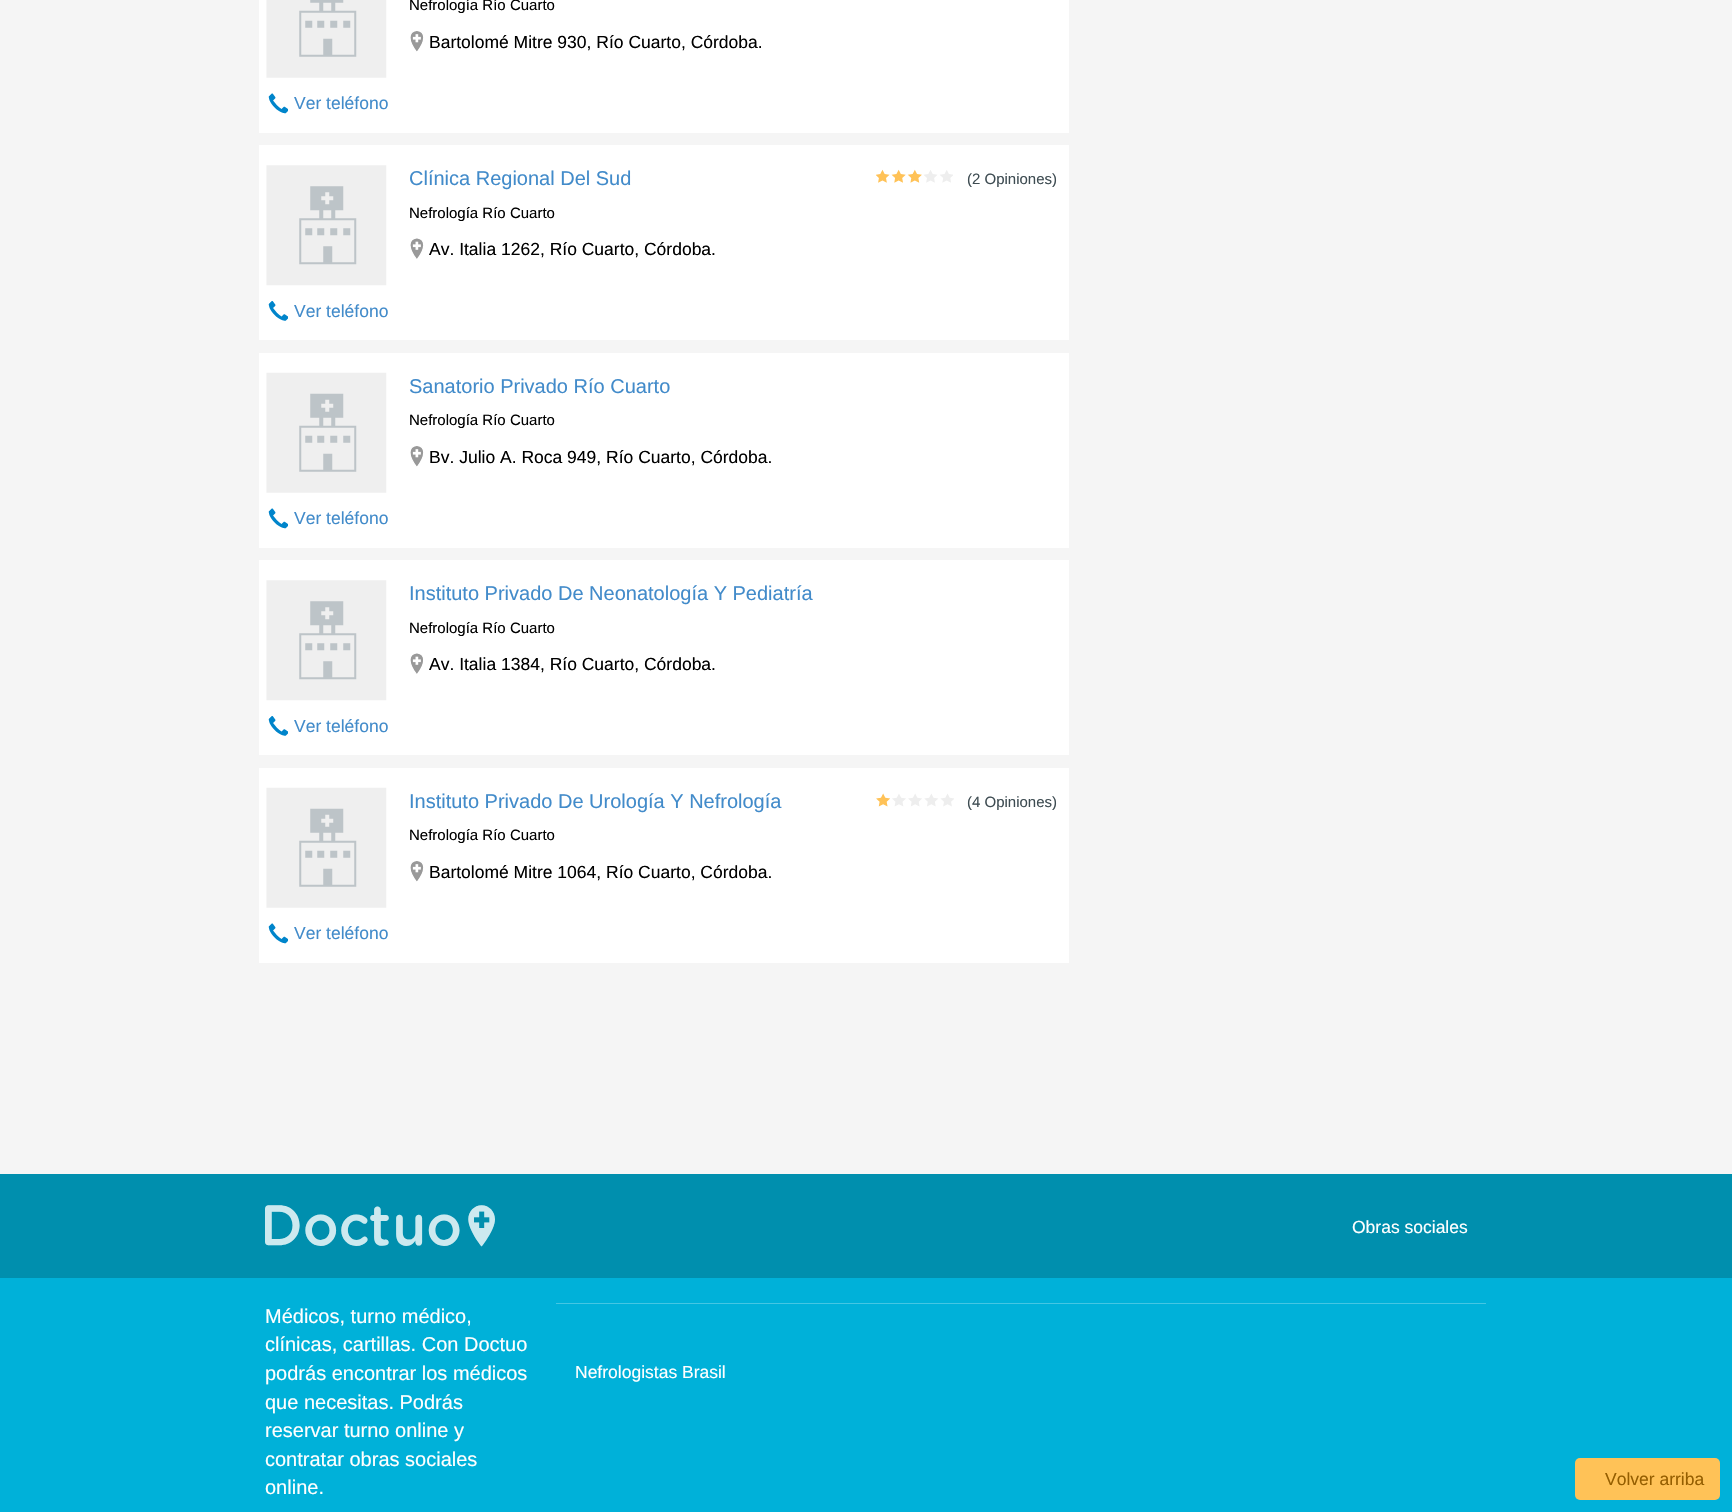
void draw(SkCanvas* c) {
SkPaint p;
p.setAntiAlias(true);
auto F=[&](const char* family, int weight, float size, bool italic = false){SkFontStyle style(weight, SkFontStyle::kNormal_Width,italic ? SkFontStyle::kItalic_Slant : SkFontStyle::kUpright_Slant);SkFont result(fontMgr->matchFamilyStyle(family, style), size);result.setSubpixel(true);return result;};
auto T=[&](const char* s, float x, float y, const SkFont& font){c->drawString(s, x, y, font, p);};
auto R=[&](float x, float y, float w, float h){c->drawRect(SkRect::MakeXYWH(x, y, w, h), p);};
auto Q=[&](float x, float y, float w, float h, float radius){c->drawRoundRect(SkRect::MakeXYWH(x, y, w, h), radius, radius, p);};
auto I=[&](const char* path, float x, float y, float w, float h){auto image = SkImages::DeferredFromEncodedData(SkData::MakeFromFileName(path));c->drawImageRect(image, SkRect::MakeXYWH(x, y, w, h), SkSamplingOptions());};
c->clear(0xfff5f5f5);
p.setColor(0xffffffff);
R(260,0,808,129);
R(1068,0,1,133);
R(259,129,810,4);
R(259,0,1,133);
auto f1 = F("Liberation Sans",400,15);
p.setColor(0xff000000);
T("Nefrología Río Cuarto",409,10,f1);
I("1.png",410,31,14,21);
auto f2 = F("Liberation Sans",400,17.5);
T("Bartolomé Mitre 930, Río Cuarto, Córdoba.",429,48,f2);
I("2.png",266,0,121,78);
I("3.png",268,93,20,21);
p.setColor(0xff428bca);
T("Ver teléfono",294,109,f2);
p.setColor(0xffffffff);
R(260,146,808,190);
R(259,145,810,1);
R(1068,145,1,195);
R(259,336,810,4);
R(259,145,1,195);
auto f3 = F("Liberation Sans",400,20);
p.setColor(0xff428bca);
T("Clínica Regional Del Sud",409,185,f3);
I("4.png",876,169,77,14);
p.setColor(0xff3e4c52);
T("(2 Opiniones)",967,184,f1);
p.setColor(0xff000000);
T("Nefrología Río Cuarto",409,218,f1);
I("5.png",410,238,14,21);
T("Av. Italia 1262, Río Cuarto, Córdoba.",429,255,f2);
I("6.png",266,165,121,121);
I("7.png",268,301,20,20);
p.setColor(0xff428bca);
T("Ver teléfono",294,317,f2);
p.setColor(0xffffffff);
R(260,354,808,190);
R(259,353,810,1);
R(1068,353,1,195);
R(259,544,810,4);
R(259,353,1,195);
p.setColor(0xff428bca);
T("Sanatorio Privado Río Cuarto",409,393,f3);
p.setColor(0xff000000);
T("Nefrología Río Cuarto",409,425,f1);
I("1.png",410,446,14,21);
T("Bv. Julio A. Roca 949, Río Cuarto, Córdoba.",429,463,f2);
I("8.png",266,372,121,121);
I("3.png",268,508,20,21);
p.setColor(0xff428bca);
T("Ver teléfono",294,524,f2);
p.setColor(0xffffffff);
R(260,561,808,190);
R(259,560,810,1);
R(1068,560,1,195);
R(259,751,810,4);
R(259,560,1,195);
p.setColor(0xff428bca);
T("Instituto Privado De Neonatología Y Pediatría",409,600,f3);
p.setColor(0xff000000);
T("Nefrología Río Cuarto",409,633,f1);
I("9.png",410,653,13,21);
T("Av. Italia 1384, Río Cuarto, Córdoba.",429,670,f2);
I("6.png",266,580,121,121);
I("7.png",268,716,20,20);
p.setColor(0xff428bca);
T("Ver teléfono",294,732,f2);
p.setColor(0xffffffff);
R(260,769,808,190);
R(259,768,810,1);
R(1068,768,1,195);
R(259,959,810,4);
R(259,768,1,195);
p.setColor(0xff428bca);
T("Instituto Privado De Urología Y Nefrología",409,808,f3);
I("10.png",876,793,78,14);
p.setColor(0xff3e4c52);
T("(4 Opiniones)",967,807,f1);
p.setColor(0xff000000);
T("Nefrología Río Cuarto",409,840,f1);
I("1.png",410,861,14,21);
T("Bartolomé Mitre 1064, Río Cuarto, Córdoba.",429,878,f2);
I("8.png",266,787,121,121);
I("3.png",268,923,20,21);
p.setColor(0xff428bca);
T("Ver teléfono",294,939,f2);
p.setColor(0xff008fae);
R(0,1174,1732,104);
I("11.png",265,1205,230,42);
I("12.png",265,1205,230,42);
p.setColor(0xffffffff);
T("Obras sociales",1352,1233,f2);
p.setColor(0xff00b1d9);
R(0,1278,1732,234);
p.setColor(0xffffffff);
T("Médicos, turno médico,",265,1323,f3);
T("clínicas, cartillas. Con Doctuo",265,1351,f3);
T("podrás encontrar los médicos",265,1380,f3);
T("que necesitas. Podrás",265,1409,f3);
T("reservar turno online y",265,1437,f3);
T("contratar obras sociales",265,1466,f3);
T("online.",265,1494,f3);
p.setColor(0xff45c6e3);
R(556,1303,930,1);
p.setColor(0xffffffff);
T("Nefrologistas Brasil",575,1378,f2);
p.setColor(0xffffc257);
Q(1575,1458,145,42,5);
p.setColor(0xff955e00);
T("Volver arriba",1605,1485,f2);
}
